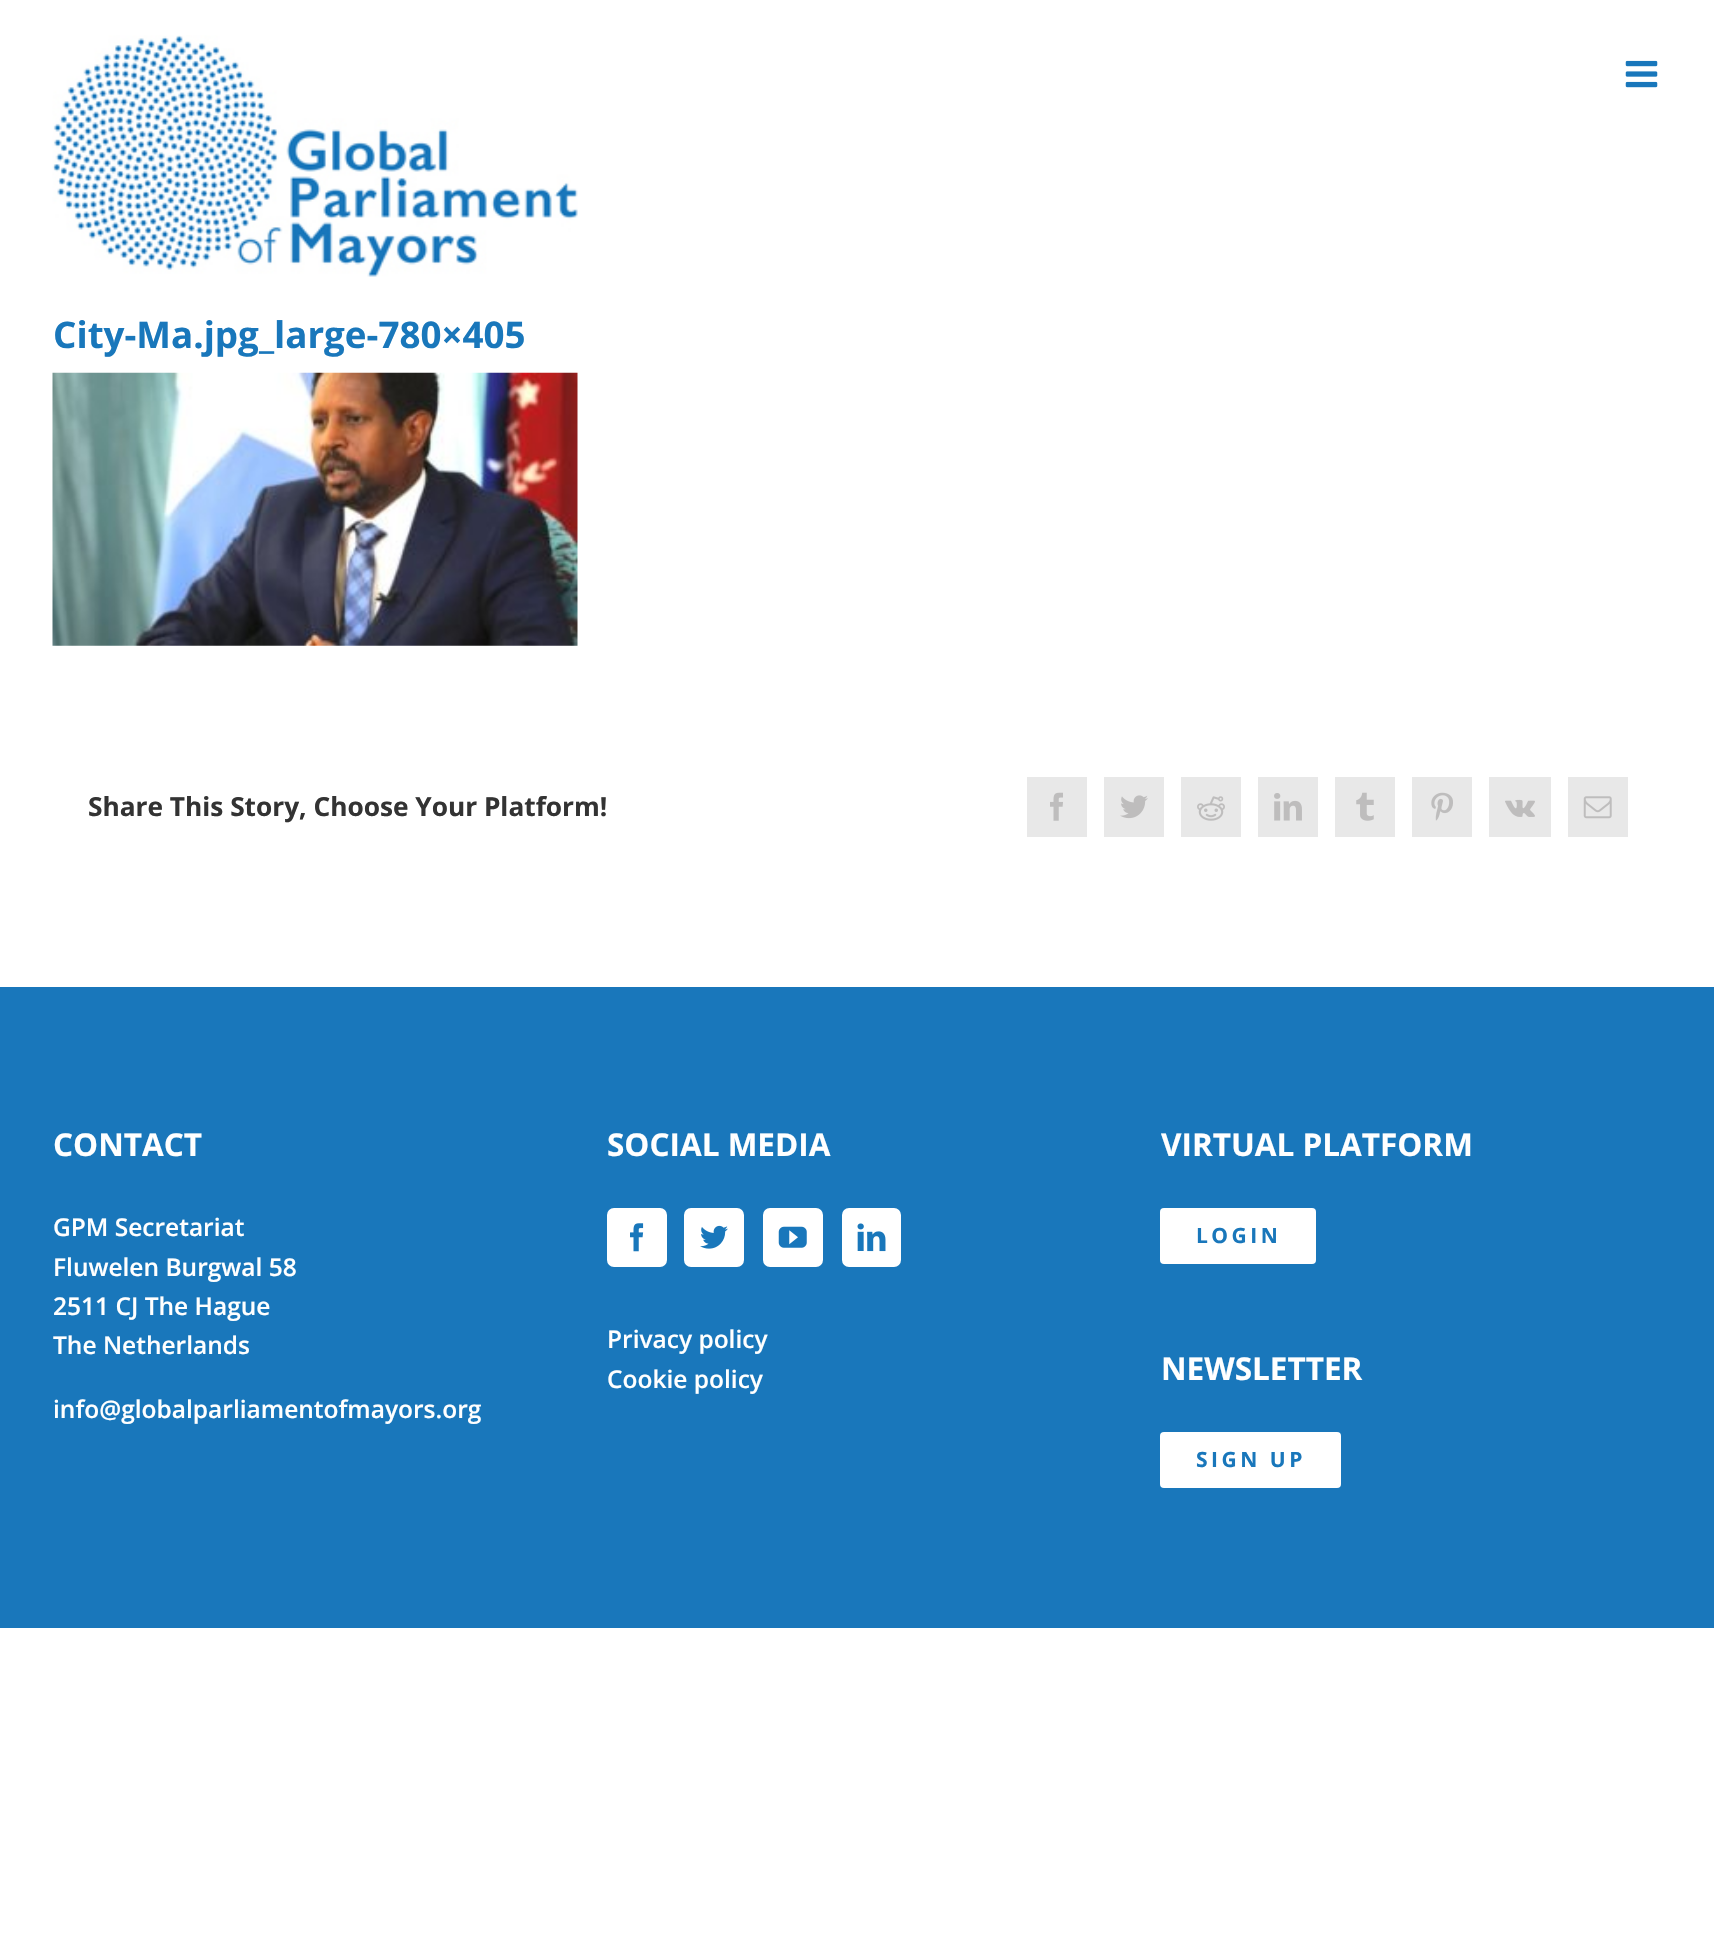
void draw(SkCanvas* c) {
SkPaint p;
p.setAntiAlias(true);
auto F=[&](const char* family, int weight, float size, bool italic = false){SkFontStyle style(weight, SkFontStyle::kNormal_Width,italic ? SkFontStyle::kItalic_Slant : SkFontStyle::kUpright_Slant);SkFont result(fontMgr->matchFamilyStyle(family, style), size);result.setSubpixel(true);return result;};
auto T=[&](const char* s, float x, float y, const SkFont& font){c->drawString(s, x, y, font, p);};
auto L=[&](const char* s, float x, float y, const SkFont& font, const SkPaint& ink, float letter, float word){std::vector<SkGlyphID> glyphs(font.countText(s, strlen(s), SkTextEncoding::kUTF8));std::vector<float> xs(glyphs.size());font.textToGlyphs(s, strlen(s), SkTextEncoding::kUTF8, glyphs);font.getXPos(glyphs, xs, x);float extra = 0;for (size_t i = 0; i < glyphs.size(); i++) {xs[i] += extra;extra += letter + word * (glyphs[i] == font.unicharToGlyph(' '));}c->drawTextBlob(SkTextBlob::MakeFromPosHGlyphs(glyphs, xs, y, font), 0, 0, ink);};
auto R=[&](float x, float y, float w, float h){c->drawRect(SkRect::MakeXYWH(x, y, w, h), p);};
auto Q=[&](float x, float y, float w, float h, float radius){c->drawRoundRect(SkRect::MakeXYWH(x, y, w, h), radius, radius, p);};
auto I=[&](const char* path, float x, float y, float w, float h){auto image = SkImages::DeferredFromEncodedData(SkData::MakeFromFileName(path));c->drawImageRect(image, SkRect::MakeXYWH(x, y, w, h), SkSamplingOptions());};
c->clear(0xffffffff);
I("1.png",52,35,526,242);
I("2.png",1625,60,33,28);
auto f1 = F("Open Sans",700,36.75);
p.setColor(0xff1977bb);
T("City-Ma.jpg_large-780×405",53,348,f1);
I("3.png",52,372,526,274);
auto f2 = F("Open Sans",700,26.25);
p.setColor(0xff333333);
T("Share This Story, Choose Your Platform!",88,816,f2);
p.setColor(0xffe8e8e8);
R(1027,777,60,60);
I("4.png",1050,792,13,29);
R(1104,777,60,60);
I("5.png",1120,795,28,24);
R(1181,777,60,60);
I("6.png",1197,796,28,25);
R(1258,777,60,60);
I("7.png",1274,793,28,28);
R(1335,777,60,60);
I("8.png",1356,792,18,29);
R(1412,777,60,60);
I("9.png",1431,792,22,29);
R(1489,777,62,60);
I("10.png",1505,799,30,18);
R(1568,777,60,60);
I("11.png",1583,796,29,23);
p.setColor(0xff1977bb);
R(0,987,1714,641);
auto f3 = F("Open Sans",700,31.5);
p.setColor(0xffffffff);
T("CONTACT",53,1156,f3);
auto f4 = F("Open Sans",600,24.5);
T("GPM Secretariat",53,1236,f4);
T("Fluwelen Burgwal 58",53,1276,f4);
T("2511 CJ The Hague",53,1315,f4);
T("The Netherlands",53,1354,f4);
T("info@globalparliamentofmayors.org",53,1418,f4);
T("SOCIAL MEDIA",607,1156,f3);
c->drawRoundRect(SkRect::MakeXYWH(608,1209,58,57),6,6,p);
p.setStroke(true);
p.setStrokeWidth(2);
c->drawRoundRect(SkRect::MakeXYWH(608,1209,58,57),6,6,p);
I("12.png",630,1223,14,29);
p.setStroke(false);
c->drawRoundRect(SkRect::MakeXYWH(685,1209,58,57),6,6,p);
p.setStroke(true);
c->drawRoundRect(SkRect::MakeXYWH(685,1209,58,57),6,6,p);
I("13.png",700,1225,28,24);
p.setStroke(false);
c->drawRoundRect(SkRect::MakeXYWH(764,1209,58,57),6,6,p);
p.setStroke(true);
c->drawRoundRect(SkRect::MakeXYWH(764,1209,58,57),6,6,p);
I("14.png",778,1226,29,22);
p.setStroke(false);
c->drawRoundRect(SkRect::MakeXYWH(843,1209,57,57),6,6,p);
p.setStroke(true);
c->drawRoundRect(SkRect::MakeXYWH(843,1209,57,57),6,6,p);
I("15.png",857,1223,29,29);
p.setStroke(false);
T("Privacy policy",607,1348,f4);
T("Cookie policy",607,1388,f4);
T("VIRTUAL PLATFORM",1161,1156,f3);
Q(1160,1208,156,56,4);
auto f5 = F("Open Sans",700,21);
p.setColor(0xff1977bb);
L("LOGIN",1196,1243,f5,p,3.5,0);
p.setColor(0xffffffff);
T("NEWSLETTER",1161,1380,f3);
Q(1160,1432,181,56,4);
p.setColor(0xff1977bb);
L("SIGN UP",1196,1467,f5,p,3.5,0);
}
